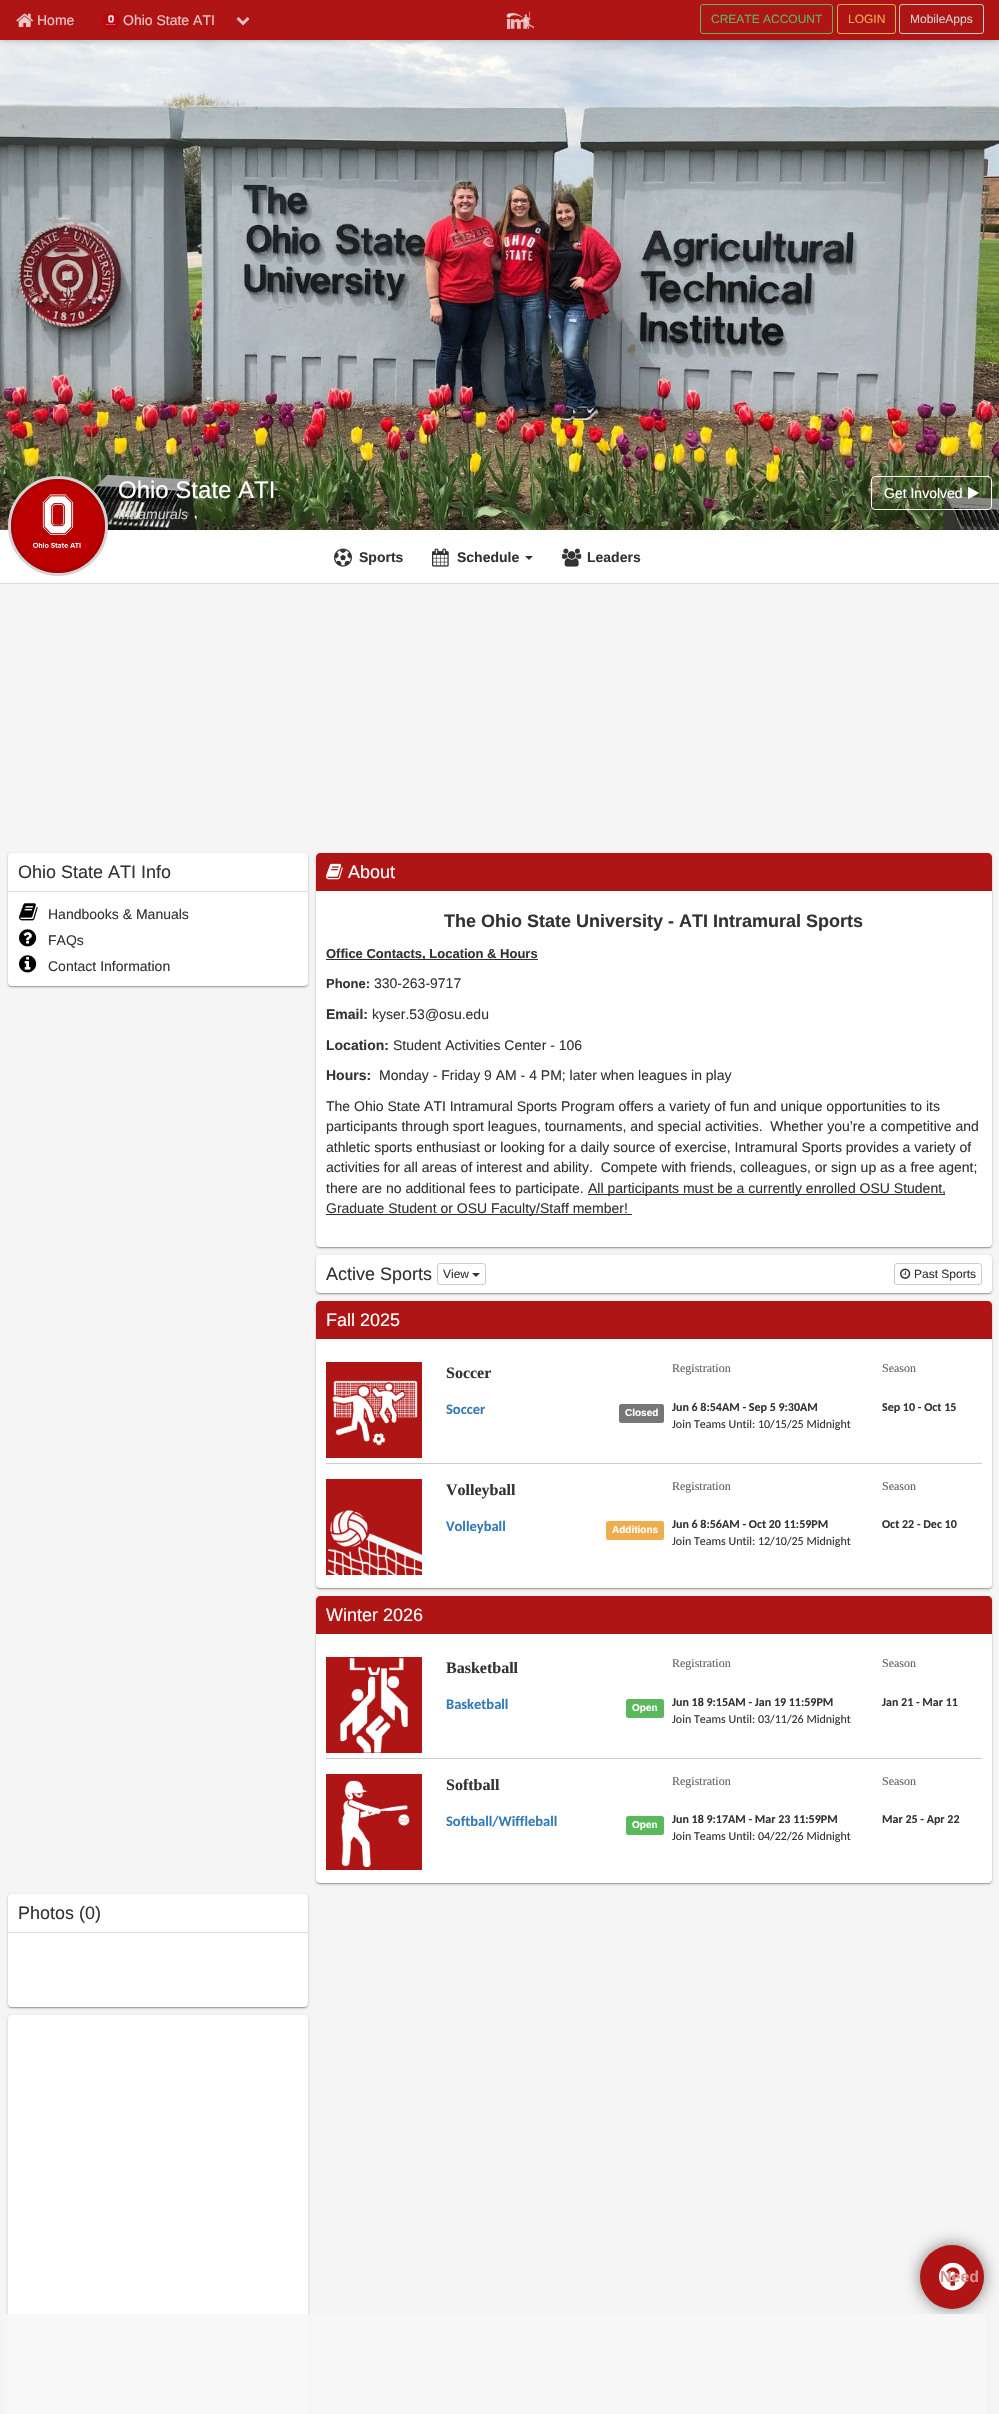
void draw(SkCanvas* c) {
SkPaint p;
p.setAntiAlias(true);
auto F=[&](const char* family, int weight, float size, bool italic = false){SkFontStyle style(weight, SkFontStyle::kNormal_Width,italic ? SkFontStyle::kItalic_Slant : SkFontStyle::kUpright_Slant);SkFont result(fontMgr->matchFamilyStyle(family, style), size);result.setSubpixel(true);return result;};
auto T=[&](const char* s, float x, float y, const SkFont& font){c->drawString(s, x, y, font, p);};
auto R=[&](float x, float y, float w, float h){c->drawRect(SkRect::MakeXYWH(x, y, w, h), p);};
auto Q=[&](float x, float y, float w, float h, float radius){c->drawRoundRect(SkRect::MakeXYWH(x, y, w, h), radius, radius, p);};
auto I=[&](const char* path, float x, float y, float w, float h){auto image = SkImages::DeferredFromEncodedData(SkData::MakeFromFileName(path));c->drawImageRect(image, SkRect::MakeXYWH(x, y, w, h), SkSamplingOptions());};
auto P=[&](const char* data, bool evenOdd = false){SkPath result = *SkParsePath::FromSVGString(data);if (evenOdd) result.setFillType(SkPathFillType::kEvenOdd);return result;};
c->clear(0xfff5f5f5);
I("5.png",0,40,999,490);
p.setColor(0x1f000000);
p.setMaskFilter(SkMaskFilter::MakeBlur(kNormal_SkBlurStyle, 3));
c->drawRect(SkRect::MakeXYWH(0,1,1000,40),p);
p.setMaskFilter(nullptr);
p.setMaskFilter(SkMaskFilter::MakeBlur(kNormal_SkBlurStyle, 3));
c->drawRect(SkRect::MakeXYWH(0,1,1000,40),p);
p.setMaskFilter(nullptr);
p.setColor(0xffb01515);
R(0,0,999,40);
I("1.png",16,13,17,14);
auto f1 = F("Liberation Sans",400,14);
p.setColor(0xffebc5c5);
T("Home",37,25,f1);
I("2.png",102,12,18,18);
T("Ohio State ATI",123,25,f1);
I("3.png",236,17,14,9);
I("4.png",506,11,28,18);
p.setStroke(true);
p.setStrokeWidth(1);
p.setColor(0xff5cb85c);
c->drawRoundRect(SkRect::MakeXYWH(700.5,4.5,132,29),2.5,2.5,p);
auto f2 = F("Liberation Sans",400,12);
p.setStroke(false);
T("CREATE ACCOUNT",711,23,f2);
p.setStroke(true);
p.setColor(0xfff0ad4e);
c->drawRoundRect(SkRect::MakeXYWH(837.5,4.5,58,29),2.5,2.5,p);
p.setStroke(false);
T("LOGIN",848,23,f2);
p.setStroke(true);
p.setColor(0xffcccccc);
c->drawRoundRect(SkRect::MakeXYWH(899.5,4.5,84,29),2.5,2.5,p);
p.setStroke(false);
p.setColor(0xffd1d1d0);
T("MobileApps",910,23,f2);
p.setColor(0xffffffff);
R(0,530,999,53);
p.setColor(0xffdddddd);
R(0,583,999,1);
p.setColor(0xffb01515);
c->drawCircle(58,526,48.5,p);
p.setStroke(true);
p.setStrokeWidth(3);
p.setColor(0xffd3d3d3);
c->drawCircle(58,526,48.5,p);
I("6.png",11,479,94,94);
auto f3 = F("Liberation Sans",400,24);
p.setStroke(false);
p.setColor(0xffffffff);
T("Ohio State ATI",118,498,f3);
auto f4 = F("Liberation Sans",400,14,true);
p.setColor(0xffd1d1d0);
T("Intramurals",118,519,f4);
p.setStroke(true);
p.setStrokeWidth(1);
p.setColor(0xffffffff);
c->drawRoundRect(SkRect::MakeXYWH(871.5,476.5,120,33),3.5,3.5,p);
p.setStroke(false);
T("Get Involved",884,498,f1);
I("7.png",968,487,11,12);
I("8.png",334,548,18,19);
auto f5 = F("Liberation Sans",700,14);
p.setColor(0xff333333);
T("Sports",359,562,f5);
I("9.png",432,548,17,19);
T("Schedule",457,562,f5);
c->drawPath(P("M525 556h8l-4 4z"),p);
I("10.png",562,548,20,19);
T("Leaders",587,562,f5);
p.setColor(0x1f000000);
p.setMaskFilter(SkMaskFilter::MakeBlur(kNormal_SkBlurStyle, .5));
c->drawRoundRect(SkRect::MakeXYWH(9,856,298,131),3,3,p);
p.setMaskFilter(nullptr);
p.setColor(0x24000000);
p.setMaskFilter(SkMaskFilter::MakeBlur(kNormal_SkBlurStyle, .5));
c->drawRoundRect(SkRect::MakeXYWH(8,854,300,133),4,4,p);
p.setMaskFilter(nullptr);
p.setColor(0x33000000);
p.setMaskFilter(SkMaskFilter::MakeBlur(kNormal_SkBlurStyle, 1.5));
c->drawRoundRect(SkRect::MakeXYWH(8,854,300,133),4,4,p);
p.setMaskFilter(nullptr);
p.setColor(0xffffffff);
Q(8,853,300,133,4);
auto f6 = F("Liberation Sans",400,18);
p.setColor(0xff333333);
T("Ohio State ATI",18,878,f6);
T("Info",141,878,f6);
p.setColor(0xffdddddd);
R(8,891,300,1);
I("11.png",19,903,19,18);
p.setColor(0xff333333);
T("Handbooks & Manuals",48,919,f1);
I("12.png",19,929,18,18);
T("FAQs",48,945,f1);
I("13.png",19,955,18,18);
T("Contact Information",48,971,f1);
p.setColor(0x1f000000);
p.setMaskFilter(SkMaskFilter::MakeBlur(kNormal_SkBlurStyle, .5));
c->drawRoundRect(SkRect::MakeXYWH(317,856,674,392),3,3,p);
p.setMaskFilter(nullptr);
p.setColor(0x24000000);
p.setMaskFilter(SkMaskFilter::MakeBlur(kNormal_SkBlurStyle, .5));
c->drawRoundRect(SkRect::MakeXYWH(316,854,676,394),4,4,p);
p.setMaskFilter(nullptr);
p.setColor(0x33000000);
p.setMaskFilter(SkMaskFilter::MakeBlur(kNormal_SkBlurStyle, 1.5));
c->drawRoundRect(SkRect::MakeXYWH(316,854,676,394),4,4,p);
p.setMaskFilter(nullptr);
p.setColor(0xffffffff);
Q(316,853,676,394,4);
p.setColor(0xffb01515);
c->drawPath(P("M320 853h668c2 0 4 2 4 4v34h-676v-34c0-2 2-4 4-4z"),p);
I("14.png",326,863,17,17);
p.setColor(0xffffffff);
T("About",348,878,f6);
auto f7 = F("Liberation Sans",700,18);
p.setColor(0xff333333);
T("The Ohio State University - ATI Intramural Sports",444,927,f7);
R(326,959,212,1);
auto f8 = F("Liberation Sans",700,13);
T("Office Contacts, Location & Hours",326,958,f8);
T("Phone:",326,988,f8);
T("330-263-9717",374,988,f1);
T("Email:",326,1019,f5);
T("kyser.53@osu.edu",372,1019,f1);
T("Location:",326,1050,f5);
T("Student Activities Center - 106",393,1050,f1);
T("Hours:",326,1080,f5);
T("Monday - Friday 9 AM - 4 PM; later when leagues in play",379,1080,f1);
T("The Ohio State ATI Intramural Sports Program offers a variety of fun and unique opportunities to its",326,1111,f1);
T("participants through sport leagues, tournaments, and special activities.  Whether you’re a competitive and",326,1131,f1);
T("athletic sports enthusiast or looking for a daily source of exercise, Intramural Sports provides a variety of",326,1152,f1);
T("activities for all areas of interest and ability.  Compete with friends, colleagues, or sign up as a free agent;",326,1172,f1);
T("there are no additional fees to participate.",326,1193,f1);
R(588,1194,357,1);
T("All participants must be a currently enrolled OSU Student,",588,1193,f1);
R(326,1214,306,1);
T("Graduate Student or OSU Faculty/Staff member!",326,1213,f1);
p.setColor(0x1f000000);
p.setMaskFilter(SkMaskFilter::MakeBlur(kNormal_SkBlurStyle, .5));
c->drawRoundRect(SkRect::MakeXYWH(317,1258,674,36),3,3,p);
p.setMaskFilter(nullptr);
p.setColor(0x24000000);
p.setMaskFilter(SkMaskFilter::MakeBlur(kNormal_SkBlurStyle, .5));
c->drawRoundRect(SkRect::MakeXYWH(316,1256,676,38),4,4,p);
p.setMaskFilter(nullptr);
p.setColor(0x33000000);
p.setMaskFilter(SkMaskFilter::MakeBlur(kNormal_SkBlurStyle, 1.5));
c->drawRoundRect(SkRect::MakeXYWH(316,1256,676,38),4,4,p);
p.setMaskFilter(nullptr);
p.setColor(0xffffffff);
Q(316,1255,676,38,4);
p.setColor(0xff333333);
T("Active Sports",326,1280,f6);
p.setStroke(true);
p.setColor(0xffcccccc);
c->drawRoundRect(SkRect::MakeXYWH(437.5,1263.5,48,21),2.5,2.5,p);
p.setStroke(false);
p.setColor(0xff333333);
T("View",443,1278,f2);
c->drawPath(P("M472 1273h8l-4 4z"),p);
p.setStroke(true);
p.setColor(0xffcccccc);
c->drawRoundRect(SkRect::MakeXYWH(894.5,1263.5,87,21),2.5,2.5,p);
I("15.png",900,1268,11,11);
p.setStroke(false);
p.setColor(0xff333333);
T("Past Sports",914,1278,f2);
p.setColor(0x1f000000);
p.setMaskFilter(SkMaskFilter::MakeBlur(kNormal_SkBlurStyle, .5));
c->drawRoundRect(SkRect::MakeXYWH(317,1304,674,285),3,3,p);
p.setMaskFilter(nullptr);
p.setColor(0x24000000);
p.setMaskFilter(SkMaskFilter::MakeBlur(kNormal_SkBlurStyle, .5));
c->drawRoundRect(SkRect::MakeXYWH(316,1302,676,287),4,4,p);
p.setMaskFilter(nullptr);
p.setColor(0x33000000);
p.setMaskFilter(SkMaskFilter::MakeBlur(kNormal_SkBlurStyle, 1.5));
c->drawRoundRect(SkRect::MakeXYWH(316,1302,676,287),4,4,p);
p.setMaskFilter(nullptr);
p.setColor(0xffffffff);
Q(316,1301,676,287,4);
p.setColor(0xffb01515);
c->drawPath(P("M320 1301h668c2 0 4 2 4 4v34h-676v-34c0-2 2-4 4-4z"),p);
p.setColor(0xffffffff);
T("Fall 2025",326,1326,f6);
p.setColor(0xffb01515);
R(326,1362,96,96);
I("16.png",332,1380,86,66);
auto f9 = F("Liberation Serif",700,16);
p.setColor(0xff333333);
T("Soccer",446,1378,f9);
auto f10 = F("Liberation Serif",400,12);
p.setColor(0xff606060);
T("Registration",672,1372,f10);
T("Season",882,1372,f10);
auto f11 = F("Carlito",700,14.5);
p.setColor(0xff337ab7);
T("Soccer",446,1414,f11);
p.setColor(0xff777777);
Q(619,1404,45,19,2.5);
auto f12 = F("Liberation Sans",700,10);
p.setColor(0xffffffff);
T("Closed",625,1416,f12);
auto f13 = F("Carlito",700,12);
p.setColor(0xff333333);
T("Jun 6 8:54AM - Sep 5 9:30AM",672,1411,f13);
auto f14 = F("Carlito",400,12);
T("Join Teams Until: 10/15/25 Midnight",672,1428,f14);
T("Sep 10 - Oct 15",882,1411,f13);
p.setColor(0xffcccccc);
R(326,1463,656,1);
p.setColor(0xffb01515);
R(326,1479,96,96);
I("17.png",328,1510,94,65);
p.setColor(0xff333333);
T("Volleyball",446,1495,f9);
p.setColor(0xff606060);
T("Registration",672,1490,f10);
T("Season",882,1490,f10);
p.setColor(0xff337ab7);
T("Volleyball",446,1531,f11);
p.setColor(0xfff0ad4e);
Q(606,1521,58,19,2.5);
p.setColor(0xffffffff);
T("Additions",612,1533,f12);
p.setColor(0xff333333);
T("Jun 6 8:56AM - Oct 20 11:59PM",672,1528,f13);
T("Join Teams Until: 12/10/25 Midnight",672,1545,f14);
T("Oct 22 - Dec 10",882,1528,f13);
p.setColor(0x1f000000);
p.setMaskFilter(SkMaskFilter::MakeBlur(kNormal_SkBlurStyle, .5));
c->drawRoundRect(SkRect::MakeXYWH(317,1599,674,285),3,3,p);
p.setMaskFilter(nullptr);
p.setColor(0x24000000);
p.setMaskFilter(SkMaskFilter::MakeBlur(kNormal_SkBlurStyle, .5));
c->drawRoundRect(SkRect::MakeXYWH(316,1597,676,287),4,4,p);
p.setMaskFilter(nullptr);
p.setColor(0x33000000);
p.setMaskFilter(SkMaskFilter::MakeBlur(kNormal_SkBlurStyle, 1.5));
c->drawRoundRect(SkRect::MakeXYWH(316,1597,676,287),4,4,p);
p.setMaskFilter(nullptr);
p.setColor(0xffffffff);
Q(316,1596,676,287,4);
p.setColor(0xffb01515);
c->drawPath(P("M320 1596h668c2 0 4 2 4 4v34h-676v-34c0-2 2-4 4-4z"),p);
p.setColor(0xffffffff);
T("Winter 2026",326,1621,f6);
p.setColor(0xffb01515);
R(326,1657,96,96);
I("18.png",340,1657,68,96);
p.setColor(0xff333333);
T("Basketball",446,1673,f9);
p.setColor(0xff606060);
T("Registration",672,1667,f10);
T("Season",882,1667,f10);
p.setColor(0xff337ab7);
T("Basketball",446,1709,f11);
p.setColor(0xff333333);
T("Jun 18 9:15AM - Jan 19 11:59PM",672,1706,f13);
T("Join Teams Until: 03/11/26 Midnight",672,1723,f14);
T("Jan 21 - Mar 11",882,1706,f13);
p.setColor(0xff5cb85c);
Q(626,1699,38,19,2.5);
p.setColor(0xffffffff);
T("Open",632,1711,f12);
p.setColor(0xffcccccc);
R(326,1758,656,1);
p.setColor(0xffb01515);
R(326,1774,96,96);
I("19.png",341,1780,69,87);
p.setColor(0xff333333);
T("Softball",446,1790,f9);
p.setColor(0xff606060);
T("Registration",672,1785,f10);
T("Season",882,1785,f10);
p.setColor(0xff337ab7);
T("Softball/Wiffleball",446,1826,f11);
p.setColor(0xff333333);
T("Jun 18 9:17AM - Mar 23 11:59PM",672,1823,f13);
T("Join Teams Until: 04/22/26 Midnight",672,1840,f14);
T("Mar 25 - Apr 22",882,1823,f13);
p.setColor(0xff5cb85c);
Q(626,1816,38,19,2.5);
p.setColor(0xffffffff);
T("Open",632,1828,f12);
p.setColor(0x1f000000);
p.setMaskFilter(SkMaskFilter::MakeBlur(kNormal_SkBlurStyle, .5));
c->drawRoundRect(SkRect::MakeXYWH(9,1897,298,111),3,3,p);
p.setMaskFilter(nullptr);
p.setColor(0x24000000);
p.setMaskFilter(SkMaskFilter::MakeBlur(kNormal_SkBlurStyle, .5));
c->drawRoundRect(SkRect::MakeXYWH(8,1895,300,113),4,4,p);
p.setMaskFilter(nullptr);
p.setColor(0x33000000);
p.setMaskFilter(SkMaskFilter::MakeBlur(kNormal_SkBlurStyle, 1.5));
c->drawRoundRect(SkRect::MakeXYWH(8,1895,300,113),4,4,p);
p.setMaskFilter(nullptr);
p.setColor(0xffffffff);
Q(8,1894,300,113,4);
p.setColor(0xff333333);
T("Photos (0)",18,1919,f6);
p.setColor(0xffdddddd);
R(8,1932,300,1);
p.setColor(0x33000000);
p.setMaskFilter(SkMaskFilter::MakeBlur(kNormal_SkBlurStyle, 1.5));
c->drawRoundRect(SkRect::MakeXYWH(8,2016,300,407),4,4,p);
p.setMaskFilter(nullptr);
p.setColor(0xffffffff);
Q(8,2015,300,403,4);
p.setColor(0x80000000);
p.setMaskFilter(SkMaskFilter::MakeBlur(kNormal_SkBlurStyle, 8));
c->drawRoundRect(SkRect::MakeXYWH(920,2245,64,64),32,32,p);
p.setMaskFilter(nullptr);
p.setColor(0xffb01515);
c->drawCircle(952,2277,32,p);
I("20.png",939,2262,28,29);
auto f15 = F("Liberation Sans",700,16);
p.setColor(0xffd99090);
T("Need",940,2282,f15);
p.setColor(0xe6f7f7f7);
R(5,2314,981,100);
}
